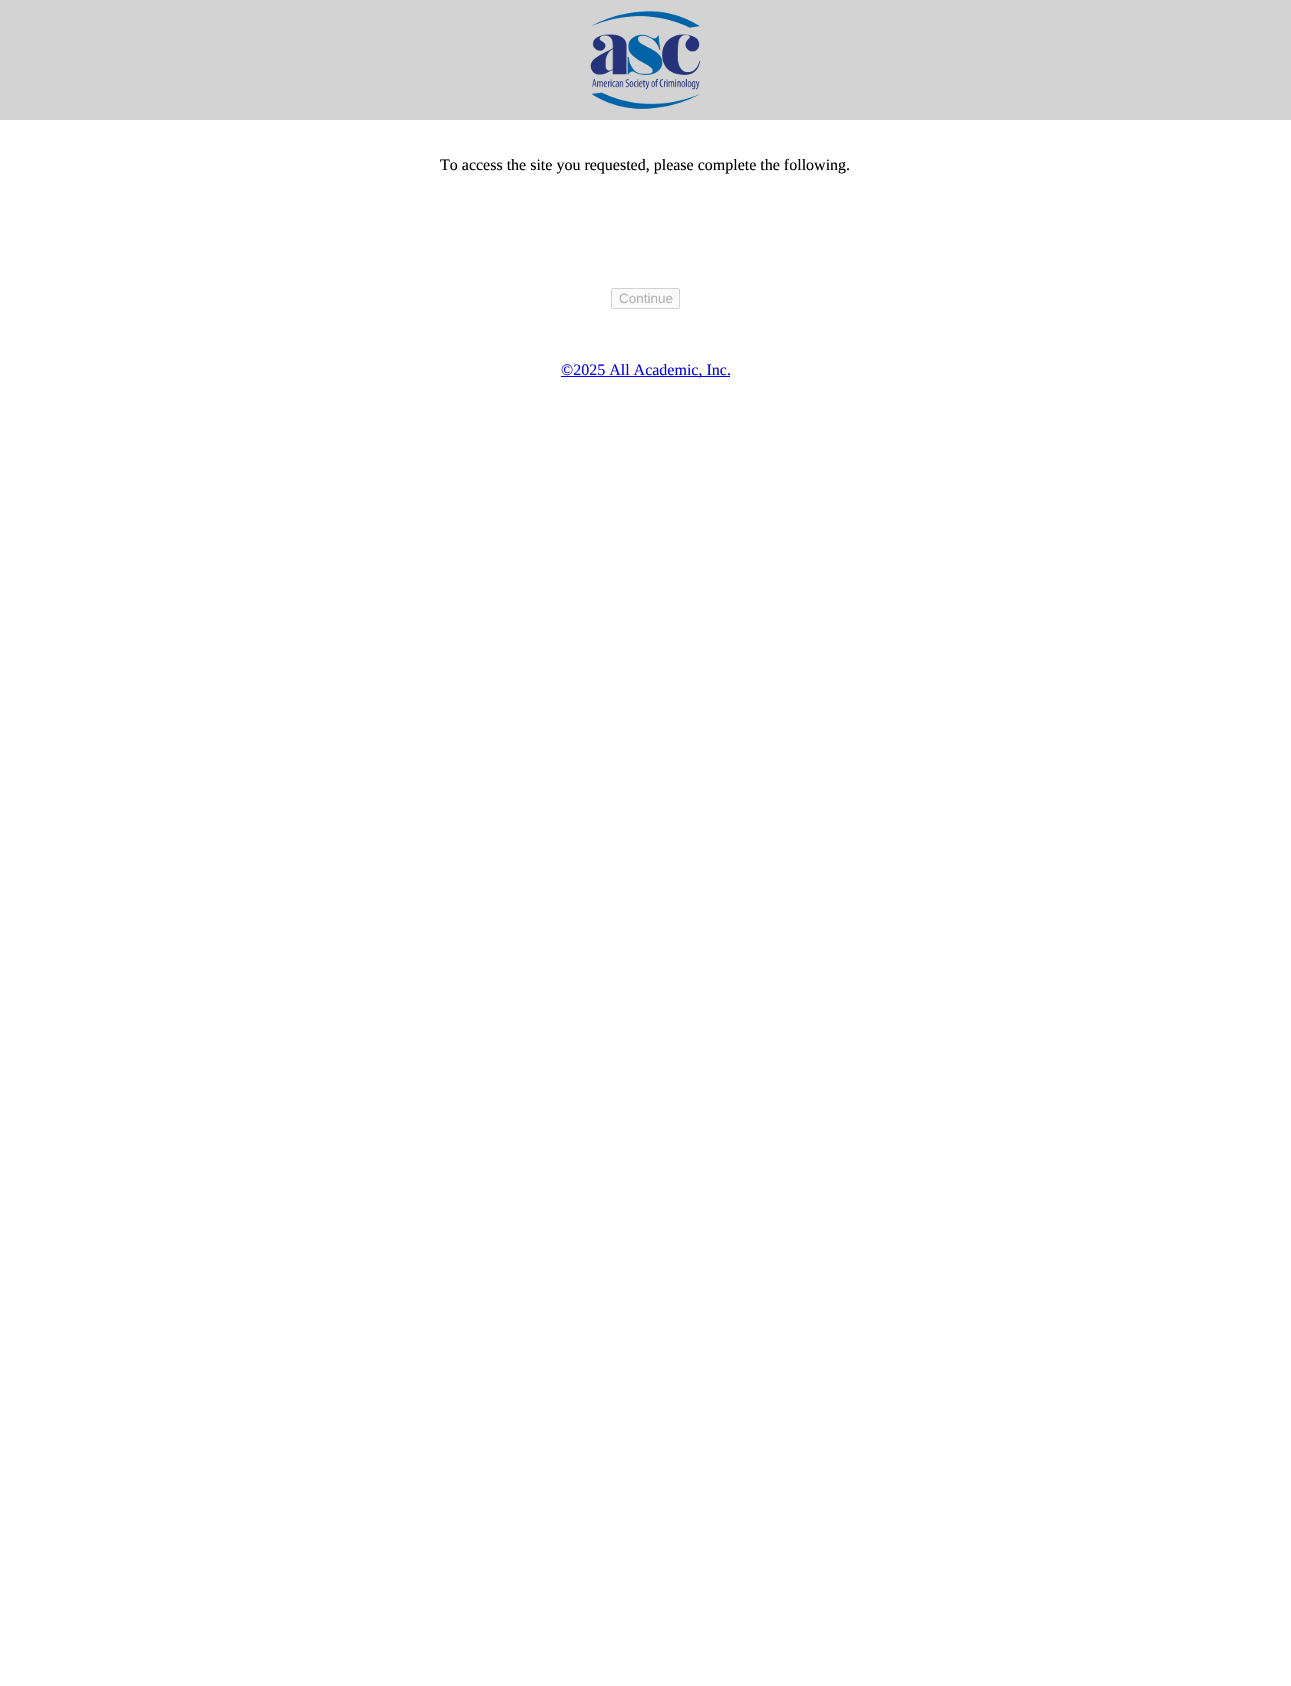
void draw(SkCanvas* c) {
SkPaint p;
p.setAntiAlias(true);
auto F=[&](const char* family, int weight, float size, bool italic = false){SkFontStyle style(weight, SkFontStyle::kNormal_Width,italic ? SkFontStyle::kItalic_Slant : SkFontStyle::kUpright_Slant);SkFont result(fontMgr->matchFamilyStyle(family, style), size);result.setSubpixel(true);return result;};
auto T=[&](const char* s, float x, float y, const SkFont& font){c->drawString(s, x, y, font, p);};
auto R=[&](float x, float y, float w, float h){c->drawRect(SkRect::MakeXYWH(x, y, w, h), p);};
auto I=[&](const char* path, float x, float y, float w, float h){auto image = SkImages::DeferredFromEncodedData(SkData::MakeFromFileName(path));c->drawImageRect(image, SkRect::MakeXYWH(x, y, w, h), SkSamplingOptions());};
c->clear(0xffffffff);
p.setColor(0xffd3d3d3);
R(0,0,1291,120);
I("1.png",590,10,111,99);
auto f1 = F("Liberation Serif",400,16);
p.setColor(0xff000000);
T("To access the site you requested, please complete the following.",440,170,f1);
p.setColor(0xfffafafa);
c->drawRoundRect(SkRect::MakeXYWH(611.5,288.5,68,20),1.5,1.5,p);
p.setStroke(true);
p.setStrokeWidth(1);
p.setColor(0xffd2d2d2);
c->drawRoundRect(SkRect::MakeXYWH(611.5,288.5,68,20),1.5,1.5,p);
auto f2 = F("Liberation Sans",400,13.5);
p.setStroke(false);
p.setColor(0xffb4b4b4);
T("Continue",619,303,f2);
p.setColor(0xff0000ee);
R(561,376,169,1);
T("©2025 All Academic, Inc.",561,375,f1);
}
